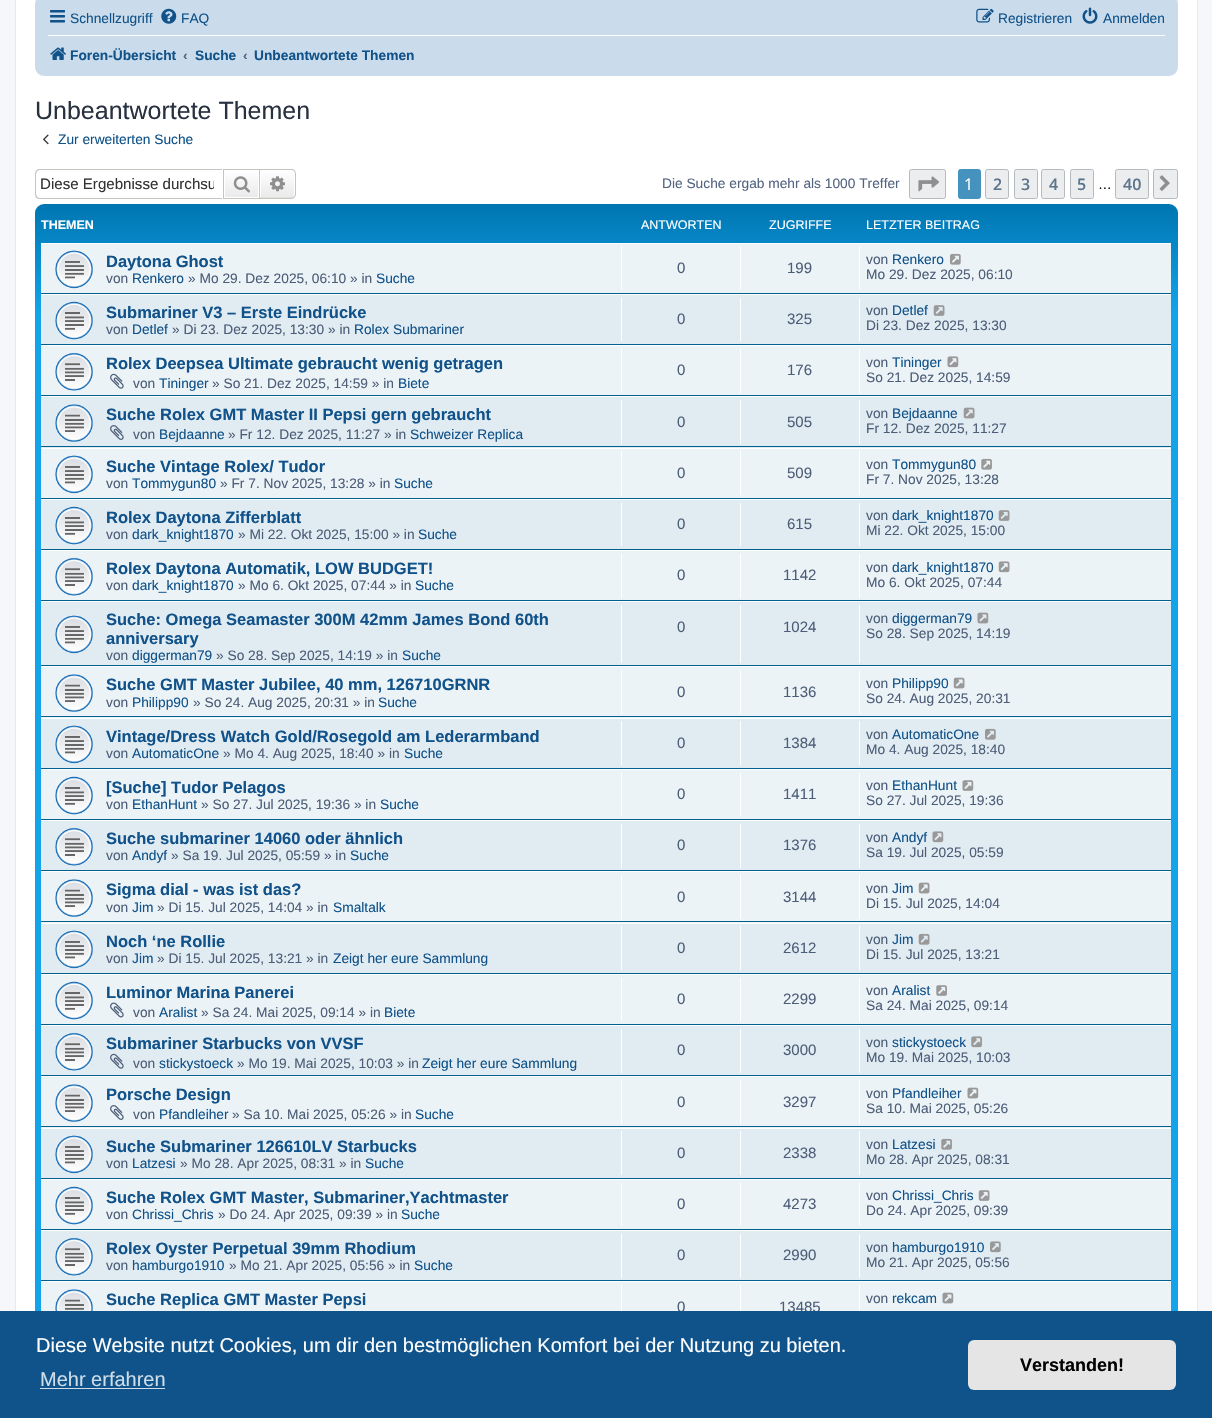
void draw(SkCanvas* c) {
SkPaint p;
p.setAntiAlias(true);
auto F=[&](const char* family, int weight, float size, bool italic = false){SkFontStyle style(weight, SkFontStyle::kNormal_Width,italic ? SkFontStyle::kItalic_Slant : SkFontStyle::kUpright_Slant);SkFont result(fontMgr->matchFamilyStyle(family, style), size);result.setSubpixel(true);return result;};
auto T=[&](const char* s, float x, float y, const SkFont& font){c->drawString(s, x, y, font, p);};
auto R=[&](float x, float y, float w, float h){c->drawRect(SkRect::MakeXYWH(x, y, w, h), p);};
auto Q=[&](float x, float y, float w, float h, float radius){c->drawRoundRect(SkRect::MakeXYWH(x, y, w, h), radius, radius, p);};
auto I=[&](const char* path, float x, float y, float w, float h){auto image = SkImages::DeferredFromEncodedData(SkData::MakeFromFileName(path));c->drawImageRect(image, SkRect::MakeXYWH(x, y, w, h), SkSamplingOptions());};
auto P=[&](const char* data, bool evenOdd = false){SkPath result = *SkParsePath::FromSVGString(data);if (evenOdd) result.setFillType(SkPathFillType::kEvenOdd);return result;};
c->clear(0xfff5f7fa);
p.setColor(0xffffffff);
R(16,0,1181,1311);
p.setStroke(true);
p.setStrokeWidth(1);
p.setColor(0xffe6e9ed);
c->drawRect(SkRect::MakeXYWH(15.5,-.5,1182,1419),p);
p.setStroke(false);
p.setColor(0xffcadceb);
Q(35,-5,1143,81,9);
I("1.png",50,10,15,13);
auto f1 = F("Liberation Sans",400,13.75);
p.setColor(0xff105289);
T("Schnellzugriff",70,23,f1);
I("2.png",161,8,16,16);
T("FAQ",181,23,f1);
I("3.png",976,8,18,15);
T("Registrieren",998,23,f1);
I("4.png",1082,7,16,17);
T("Anmelden",1103,23,f1);
p.setColor(0xffffffff);
R(48,35,1117,1);
I("5.png",50,47,16,13);
auto f2 = F("Liberation Sans",700,13.75);
p.setColor(0xff105289);
T("Foren-Übersicht",70,60,f2);
p.setColor(0xff536482);
T("‹",183,60,f2);
p.setColor(0xff105289);
T("Suche",195,60,f2);
p.setColor(0xff536482);
T("‹",243,60,f2);
p.setColor(0xff105289);
T("Unbeantwortete Themen",254,60,f2);
auto f3 = F("Liberation Sans",400,25);
p.setColor(0xff28313f);
T("Unbeantwortete Themen",35,119,f3);
I("6.png",43,134,6,11);
p.setColor(0xff105289);
T("Zur erweiterten Suche",58,144,f1);
p.setColor(0xffc7c3bf);
c->drawPath(P("M40 169h182v30h-182c-3 0-5-2-5-5v-20c0-3 2-5 5-5zm0 1h182v28h-182c-2 0-4-2-4-4v-20c0-2 2-4 4-4z",true),p);
c->save();
c->clipRect(SkRect::MakeXYWH(40,175,174,18));
auto f4 = F("Liberation Sans",400,15.1);
p.setColor(0xff333333);
T("Diese Ergebnisse durchsu",40,189,f4);
c->restore();
{
const SkColor colors[] = {0xffffffff,0xffe9e9e9};
const float stops[] = {0,1};
const SkPoint ends[] = {{241,170}, {241,198}};
p.setShader(SkGradientShader::MakeLinear(ends, colors, stops, 2, SkTileMode::kClamp));
p.setAlpha(255);
}
R(225,173,33,24);
p.setStroke(true);
p.setShader(nullptr);
p.setColor(0xffc7c3bf);
c->drawRect(SkRect::MakeXYWH(223.5,169.5,36,29),p);
I("7.png",233,176,17,17);
p.setStroke(false);
{
const SkColor colors[] = {0xffffffff,0xffe9e9e9};
const float stops[] = {0,1};
const SkPoint ends[] = {{278,170}, {278,198}};
p.setShader(SkGradientShader::MakeLinear(ends, colors, stops, 2, SkTileMode::kClamp));
p.setAlpha(255);
}
c->drawPath(P("M260.5 170.5h30.5c2 0 3.5 1.5 3.5 3.5v20c0 2-1.5 3.5-3.5 3.5h-30.5z"),p);
p.setStroke(true);
p.setShader(nullptr);
p.setColor(0xffffffff);
c->drawPath(P("M260.5 170.5h30.5c2 0 3.5 1.5 3.5 3.5v20c0 2-1.5 3.5-3.5 3.5h-30.5z"),p);
p.setStroke(false);
p.setColor(0xffc7c3bf);
c->drawPath(P("M260 169h31c3 0 5 2 5 5v20c0 2.5-2 5-5 5h-31zm0 1h31c2.5 0 4 1.5 4 4v20c0 2-1.5 3.5-4 3.5h-31z",true),p);
I("8.png",270,176,15,16);
p.setColor(0xff536482);
T("Die Suche ergab mehr als 1000 Treffer",662,188,f1);
p.setColor(0xffecedee);
c->drawRoundRect(SkRect::MakeXYWH(909.5,169.5,36,29),2,2,p);
p.setStroke(true);
p.setColor(0xffb4bac0);
c->drawRoundRect(SkRect::MakeXYWH(909.5,169.5,36,29),2,2,p);
I("9.png",918,176,21,16);
p.setStroke(false);
p.setColor(0xff4692bf);
c->drawRoundRect(SkRect::MakeXYWH(958.5,169.5,22,29),2,2,p);
p.setStroke(true);
c->drawRoundRect(SkRect::MakeXYWH(958.5,169.5,22,29),2,2,p);
auto f5 = F("Open Sans",400,16);
p.setStroke(false);
p.setColor(0xffffffff);
T("1",964,190,f5);
p.setColor(0xffecedee);
c->drawRoundRect(SkRect::MakeXYWH(985.5,169.5,23,29),2,2,p);
p.setStroke(true);
p.setColor(0xffb4bac0);
c->drawRoundRect(SkRect::MakeXYWH(985.5,169.5,23,29),2,2,p);
auto f6 = F("Open Sans",600,16);
p.setStroke(false);
p.setColor(0xff5c758c);
T("2",993,190,f6);
p.setColor(0xffecedee);
c->drawRoundRect(SkRect::MakeXYWH(1014.5,169.5,23,29),2,2,p);
p.setStroke(true);
p.setColor(0xffb4bac0);
c->drawRoundRect(SkRect::MakeXYWH(1014.5,169.5,23,29),2,2,p);
p.setStroke(false);
p.setColor(0xff5c758c);
T("3",1021,190,f6);
p.setColor(0xffecedee);
c->drawRoundRect(SkRect::MakeXYWH(1041.5,169.5,23,29),2,2,p);
p.setStroke(true);
p.setColor(0xffb4bac0);
c->drawRoundRect(SkRect::MakeXYWH(1041.5,169.5,23,29),2,2,p);
p.setStroke(false);
p.setColor(0xff5c758c);
T("4",1049,190,f6);
p.setColor(0xffecedee);
c->drawRoundRect(SkRect::MakeXYWH(1070.5,169.5,23,29),2,2,p);
p.setStroke(true);
p.setColor(0xffb4bac0);
c->drawRoundRect(SkRect::MakeXYWH(1070.5,169.5,23,29),2,2,p);
p.setStroke(false);
p.setColor(0xff5c758c);
T("5",1077,190,f6);
p.setColor(0xff000000);
T("…",1098,189,f1);
p.setColor(0xffecedee);
c->drawRoundRect(SkRect::MakeXYWH(1115.5,169.5,33,29),2,2,p);
p.setStroke(true);
p.setColor(0xffb4bac0);
c->drawRoundRect(SkRect::MakeXYWH(1115.5,169.5,33,29),2,2,p);
p.setStroke(false);
p.setColor(0xff5c758c);
T("40",1123,190,f6);
p.setColor(0xffecedee);
c->drawRoundRect(SkRect::MakeXYWH(1153.5,169.5,24,29),2,2,p);
p.setStroke(true);
p.setColor(0xffb4bac0);
c->drawRoundRect(SkRect::MakeXYWH(1153.5,169.5,24,29),2,2,p);
I("10.png",1159,175,11,16);
p.setStroke(false);
{
const SkColor colors[] = {0xff6aceff,0xff0076b1,0xff12a3eb,0xff12a3eb};
const float stops[] = {0,0,.08,1};
const SkPoint ends[] = {{606,204}, {606,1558}};
p.setShader(SkGradientShader::MakeLinear(ends, colors, stops, 4, SkTileMode::kClamp));
p.setAlpha(255);
}
Q(35,204,1143,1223,9);
auto f7 = F("Liberation Sans",700,12.5);
p.setShader(nullptr);
p.setColor(0xffffffff);
T("THEMEN",41,229,f7);
auto f8 = F("Liberation Sans",400,12.5);
T("ANTWORTEN",641,229,f8);
T("ZUGRIFFE",769,229,f8);
T("LETZTER BEITRAG",866,229,f8);
p.setColor(0xffecf3f7);
R(41,244,1130,49);
p.setColor(0xffffffff);
R(41,243,1130,1);
p.setColor(0xff00608f);
R(41,293,1130,1);
I("11.png",55,250,38,39);
auto f9 = F("Liberation Sans",700,16.5);
p.setColor(0xff105289);
T("Daytona Ghost",106,267,f9);
p.setColor(0xff4c5d77);
T("von",106,283,f1);
p.setColor(0xff105289);
T("Renkero",132,283,f1);
p.setColor(0xff4c5d77);
T("» Mo 29. Dez 2025, 06:10 » in",188,283,f1);
p.setColor(0xff105289);
T("Suche",376,283,f1);
p.setColor(0xffffffff);
R(621,246,1,44);
auto f10 = F("Liberation Sans",400,15);
p.setColor(0xff4c5d77);
T("0",677,273,f10);
p.setColor(0xffffffff);
R(740,246,1,44);
p.setColor(0xff4c5d77);
T("199",787,273,f10);
p.setColor(0xffffffff);
R(859,246,1,44);
p.setColor(0xff4c5d77);
T("von",866,264,f1);
p.setColor(0xff105289);
T("Renkero",892,264,f1);
I("12.png",950,253,11,12);
p.setColor(0xff4c5d77);
T("Mo 29. Dez 2025, 06:10",866,279,f1);
p.setColor(0xffe1ebf2);
R(41,295,1130,49);
p.setColor(0xffffffff);
R(41,294,1130,1);
p.setColor(0xff00608f);
R(41,344,1130,1);
I("13.png",55,301,38,39);
p.setColor(0xff105289);
T("Submariner V3 – Erste Eindrücke",106,318,f9);
p.setColor(0xff4c5d77);
T("von",106,334,f1);
p.setColor(0xff105289);
T("Detlef",132,334,f1);
p.setColor(0xff4c5d77);
T("» Di 23. Dez 2025, 13:30 » in",172,334,f1);
p.setColor(0xff105289);
T("Rolex Submariner",354,334,f1);
p.setColor(0xffffffff);
R(621,298,1,43);
p.setColor(0xff4c5d77);
T("0",677,324,f10);
p.setColor(0xffffffff);
R(740,298,1,43);
p.setColor(0xff4c5d77);
T("325",787,324,f10);
p.setColor(0xffffffff);
R(859,298,1,43);
p.setColor(0xff4c5d77);
T("von",866,315,f1);
p.setColor(0xff105289);
T("Detlef",892,315,f1);
I("14.png",933,305,12,11);
p.setColor(0xff4c5d77);
T("Di 23. Dez 2025, 13:30",866,330,f1);
p.setColor(0xffecf3f7);
R(41,346,1130,49);
p.setColor(0xffffffff);
R(41,345,1130,1);
p.setColor(0xff00608f);
R(41,395,1130,1);
I("15.png",55,352,38,39);
p.setColor(0xff105289);
T("Rolex Deepsea Ultimate gebraucht wenig getragen",106,369,f9);
I("16.png",110,373,14,16);
p.setColor(0xff4c5d77);
T("von",133,388,f1);
p.setColor(0xff105289);
T("Tininger",159,388,f1);
p.setColor(0xff4c5d77);
T("» So 21. Dez 2025, 14:59 » in",212,388,f1);
p.setColor(0xff105289);
T("Biete",398,388,f1);
p.setColor(0xffffffff);
R(621,349,1,44);
p.setColor(0xff4c5d77);
T("0",677,375,f10);
p.setColor(0xffffffff);
R(740,349,1,44);
p.setColor(0xff4c5d77);
T("176",787,375,f10);
p.setColor(0xffffffff);
R(859,349,1,44);
p.setColor(0xff4c5d77);
T("von",866,367,f1);
p.setColor(0xff105289);
T("Tininger",892,367,f1);
I("17.png",947,356,12,12);
p.setColor(0xff4c5d77);
T("So 21. Dez 2025, 14:59",866,382,f1);
p.setColor(0xffe1ebf2);
R(41,397,1130,51);
p.setColor(0xffffffff);
R(41,396,1130,1);
p.setColor(0xff00608f);
R(41,446,1130,1);
I("18.png",55,404,38,38);
p.setColor(0xff105289);
T("Suche Rolex GMT Master II Pepsi gern gebraucht",106,420,f9);
I("19.png",110,425,14,15);
p.setColor(0xff4c5d77);
T("von",133,439,f1);
p.setColor(0xff105289);
T("Bejdaanne",159,439,f1);
p.setColor(0xff4c5d77);
T("» Fr 12. Dez 2025, 11:27 » in",228,439,f1);
p.setColor(0xff105289);
T("Schweizer Replica",410,439,f1);
p.setColor(0xffffffff);
R(621,400,1,44);
p.setColor(0xff4c5d77);
T("0",677,427,f10);
p.setColor(0xffffffff);
R(740,400,1,44);
p.setColor(0xff4c5d77);
T("505",787,427,f10);
p.setColor(0xffffffff);
R(859,400,1,44);
p.setColor(0xff4c5d77);
T("von",866,418,f1);
p.setColor(0xff105289);
T("Bejdaanne",892,418,f1);
I("20.png",963,407,12,12);
p.setColor(0xff4c5d77);
T("Fr 12. Dez 2025, 11:27",866,433,f1);
p.setColor(0xffecf3f7);
R(41,449,1130,49);
p.setColor(0xffffffff);
R(41,448,1130,1);
p.setColor(0xff00608f);
R(41,498,1130,1);
I("21.png",55,455,38,39);
p.setColor(0xff105289);
T("Suche Vintage Rolex/ Tudor",106,472,f9);
p.setColor(0xff4c5d77);
T("von",106,488,f1);
p.setColor(0xff105289);
T("Tommygun80",132,488,f1);
p.setColor(0xff4c5d77);
T("» Fr 7. Nov 2025, 13:28 » in",220,488,f1);
p.setColor(0xff105289);
T("Suche",394,488,f1);
p.setColor(0xffffffff);
R(621,451,1,44);
p.setColor(0xff4c5d77);
T("0",677,478,f10);
p.setColor(0xffffffff);
R(740,451,1,44);
p.setColor(0xff4c5d77);
T("509",787,478,f10);
p.setColor(0xffffffff);
R(859,451,1,44);
p.setColor(0xff4c5d77);
T("von",866,469,f1);
p.setColor(0xff105289);
T("Tommygun80",892,469,f1);
I("22.png",981,458,11,12);
p.setColor(0xff4c5d77);
T("Fr 7. Nov 2025, 13:28",866,484,f1);
p.setColor(0xffe1ebf2);
R(41,500,1130,49);
p.setColor(0xffffffff);
R(41,499,1130,1);
p.setColor(0xff00608f);
R(41,549,1130,1);
I("13.png",55,506,38,39);
p.setColor(0xff105289);
T("Rolex Daytona Zifferblatt",106,523,f9);
p.setColor(0xff4c5d77);
T("von",106,539,f1);
p.setColor(0xff105289);
T("dark_knight1870",132,539,f1);
p.setColor(0xff4c5d77);
T("» Mi 22. Okt 2025, 15:00 » in",238,539,f1);
p.setColor(0xff105289);
T("Suche",418,539,f1);
p.setColor(0xffffffff);
R(621,503,1,43);
p.setColor(0xff4c5d77);
T("0",677,529,f10);
p.setColor(0xffffffff);
R(740,503,1,43);
p.setColor(0xff4c5d77);
T("615",787,529,f10);
p.setColor(0xffffffff);
R(859,503,1,43);
p.setColor(0xff4c5d77);
T("von",866,520,f1);
p.setColor(0xff105289);
T("dark_knight1870",892,520,f1);
I("14.png",998,510,12,11);
p.setColor(0xff4c5d77);
T("Mi 22. Okt 2025, 15:00",866,535,f1);
p.setColor(0xffecf3f7);
R(41,551,1130,49);
p.setColor(0xffffffff);
R(41,550,1130,1);
p.setColor(0xff00608f);
R(41,600,1130,1);
I("15.png",55,557,38,39);
p.setColor(0xff105289);
T("Rolex Daytona Automatik, LOW BUDGET!",106,574,f9);
p.setColor(0xff4c5d77);
T("von",106,590,f1);
p.setColor(0xff105289);
T("dark_knight1870",132,590,f1);
p.setColor(0xff4c5d77);
T("» Mo 6. Okt 2025, 07:44 » in",238,590,f1);
p.setColor(0xff105289);
T("Suche",415,590,f1);
p.setColor(0xffffffff);
R(621,554,1,44);
p.setColor(0xff4c5d77);
T("0",677,580,f10);
p.setColor(0xffffffff);
R(740,554,1,44);
p.setColor(0xff4c5d77);
T("1142",783,580,f10);
p.setColor(0xffffffff);
R(859,554,1,44);
p.setColor(0xff4c5d77);
T("von",866,572,f1);
p.setColor(0xff105289);
T("dark_knight1870",892,572,f1);
I("23.png",998,561,12,12);
p.setColor(0xff4c5d77);
T("Mo 6. Okt 2025, 07:44",866,587,f1);
p.setColor(0xffe1ebf2);
R(41,602,1130,63);
p.setColor(0xffffffff);
R(41,601,1130,1);
p.setColor(0xff00608f);
R(41,665,1130,1);
I("24.png",55,615,38,39);
p.setColor(0xff105289);
T("Suche: Omega Seamaster 300M 42mm James Bond 60th",106,625,f9);
T("anniversary",106,644,f9);
p.setColor(0xff4c5d77);
T("von",106,660,f1);
p.setColor(0xff105289);
T("diggerman79",132,660,f1);
p.setColor(0xff4c5d77);
T("» So 28. Sep 2025, 14:19 » in",216,660,f1);
p.setColor(0xff105289);
T("Suche",402,660,f1);
p.setColor(0xffffffff);
R(621,605,1,58);
p.setColor(0xff4c5d77);
T("0",677,632,f10);
p.setColor(0xffffffff);
R(740,605,1,58);
p.setColor(0xff4c5d77);
T("1024",783,632,f10);
p.setColor(0xffffffff);
R(859,605,1,58);
p.setColor(0xff4c5d77);
T("von",866,623,f1);
p.setColor(0xff105289);
T("diggerman79",892,623,f1);
I("25.png",977,612,12,12);
p.setColor(0xff4c5d77);
T("So 28. Sep 2025, 14:19",866,638,f1);
p.setColor(0xffecf3f7);
R(41,667,1130,51);
p.setColor(0xffffffff);
R(41,666,1130,1);
p.setColor(0xff00608f);
R(41,716,1130,1);
I("26.png",55,674,38,38);
p.setColor(0xff105289);
T("Suche GMT Master Jubilee, 40 mm, 126710GRNR",106,690,f9);
p.setColor(0xff4c5d77);
T("von",106,707,f1);
p.setColor(0xff105289);
T("Philipp90",132,707,f1);
p.setColor(0xff4c5d77);
T("» So 24. Aug 2025, 20:31 » in",193,707,f1);
p.setColor(0xff105289);
T("Suche",378,707,f1);
p.setColor(0xffffffff);
R(621,670,1,44);
p.setColor(0xff4c5d77);
T("0",677,697,f10);
p.setColor(0xffffffff);
R(740,670,1,44);
p.setColor(0xff4c5d77);
T("1136",783,697,f10);
p.setColor(0xffffffff);
R(859,670,1,44);
p.setColor(0xff4c5d77);
T("von",866,688,f1);
p.setColor(0xff105289);
T("Philipp90",892,688,f1);
I("27.png",953,677,12,12);
p.setColor(0xff4c5d77);
T("So 24. Aug 2025, 20:31",866,703,f1);
p.setColor(0xffe1ebf2);
R(41,719,1130,49);
p.setColor(0xffffffff);
R(41,718,1130,1);
p.setColor(0xff00608f);
R(41,768,1130,1);
I("24.png",55,725,38,39);
p.setColor(0xff105289);
T("Vintage/Dress Watch Gold/Rosegold am Lederarmband",106,742,f9);
p.setColor(0xff4c5d77);
T("von",106,758,f1);
p.setColor(0xff105289);
T("AutomaticOne",132,758,f1);
p.setColor(0xff4c5d77);
T("» Mo 4. Aug 2025, 18:40 » in",223,758,f1);
p.setColor(0xff105289);
T("Suche",404,758,f1);
p.setColor(0xffffffff);
R(621,721,1,44);
p.setColor(0xff4c5d77);
T("0",677,748,f10);
p.setColor(0xffffffff);
R(740,721,1,44);
p.setColor(0xff4c5d77);
T("1384",783,748,f10);
p.setColor(0xffffffff);
R(859,721,1,44);
p.setColor(0xff4c5d77);
T("von",866,739,f1);
p.setColor(0xff105289);
T("AutomaticOne",892,739,f1);
I("28.png",985,728,11,12);
p.setColor(0xff4c5d77);
T("Mo 4. Aug 2025, 18:40",866,754,f1);
p.setColor(0xffecf3f7);
R(41,770,1130,49);
p.setColor(0xffffffff);
R(41,769,1130,1);
p.setColor(0xff00608f);
R(41,819,1130,1);
I("29.png",55,776,38,39);
p.setColor(0xff105289);
T("[Suche] Tudor Pelagos",106,793,f9);
p.setColor(0xff4c5d77);
T("von",106,809,f1);
p.setColor(0xff105289);
T("EthanHunt",132,809,f1);
p.setColor(0xff4c5d77);
T("» So 27. Jul 2025, 19:36 » in",201,809,f1);
p.setColor(0xff105289);
T("Suche",380,809,f1);
p.setColor(0xffffffff);
R(621,773,1,43);
p.setColor(0xff4c5d77);
T("0",677,799,f10);
p.setColor(0xffffffff);
R(740,773,1,43);
p.setColor(0xff4c5d77);
T("1411",783,799,f10);
p.setColor(0xffffffff);
R(859,773,1,43);
p.setColor(0xff4c5d77);
T("von",866,790,f1);
p.setColor(0xff105289);
T("EthanHunt",892,790,f1);
I("30.png",962,780,12,11);
p.setColor(0xff4c5d77);
T("So 27. Jul 2025, 19:36",866,805,f1);
p.setColor(0xffe1ebf2);
R(41,821,1130,49);
p.setColor(0xffffffff);
R(41,820,1130,1);
p.setColor(0xff00608f);
R(41,870,1130,1);
I("31.png",55,827,38,39);
p.setColor(0xff105289);
T("Suche submariner 14060 oder ähnlich",106,844,f9);
p.setColor(0xff4c5d77);
T("von",106,860,f1);
p.setColor(0xff105289);
T("Andyf",132,860,f1);
p.setColor(0xff4c5d77);
T("» Sa 19. Jul 2025, 05:59 » in",171,860,f1);
p.setColor(0xff105289);
T("Suche",350,860,f1);
p.setColor(0xffffffff);
R(621,824,1,44);
p.setColor(0xff4c5d77);
T("0",677,850,f10);
p.setColor(0xffffffff);
R(740,824,1,44);
p.setColor(0xff4c5d77);
T("1376",783,850,f10);
p.setColor(0xffffffff);
R(859,824,1,44);
p.setColor(0xff4c5d77);
T("von",866,842,f1);
p.setColor(0xff105289);
T("Andyf",892,842,f1);
I("32.png",932,831,12,12);
p.setColor(0xff4c5d77);
T("Sa 19. Jul 2025, 05:59",866,857,f1);
p.setColor(0xffecf3f7);
R(41,872,1130,51);
p.setColor(0xffffffff);
R(41,871,1130,1);
p.setColor(0xff00608f);
R(41,921,1130,1);
I("26.png",55,879,38,38);
p.setColor(0xff105289);
T("Sigma dial - was ist das?",106,895,f9);
p.setColor(0xff4c5d77);
T("von",106,912,f1);
p.setColor(0xff105289);
T("Jim",132,912,f1);
p.setColor(0xff4c5d77);
T("» Di 15. Jul 2025, 14:04 » in",157,912,f1);
p.setColor(0xff105289);
T("Smaltalk",333,912,f1);
p.setColor(0xffffffff);
R(621,875,1,44);
p.setColor(0xff4c5d77);
T("0",677,902,f10);
p.setColor(0xffffffff);
R(740,875,1,44);
p.setColor(0xff4c5d77);
T("3144",783,902,f10);
p.setColor(0xffffffff);
R(859,875,1,44);
p.setColor(0xff4c5d77);
T("von",866,893,f1);
p.setColor(0xff105289);
T("Jim",892,893,f1);
I("27.png",918,882,12,12);
p.setColor(0xff4c5d77);
T("Di 15. Jul 2025, 14:04",866,908,f1);
p.setColor(0xffe1ebf2);
R(41,924,1130,49);
p.setColor(0xffffffff);
R(41,923,1130,1);
p.setColor(0xff00608f);
R(41,973,1130,1);
I("24.png",55,930,38,39);
p.setColor(0xff105289);
T("Noch ‘ne Rollie",106,947,f9);
p.setColor(0xff4c5d77);
T("von",106,963,f1);
p.setColor(0xff105289);
T("Jim",132,963,f1);
p.setColor(0xff4c5d77);
T("» Di 15. Jul 2025, 13:21 » in",157,963,f1);
p.setColor(0xff105289);
T("Zeigt her eure Sammlung",333,963,f1);
p.setColor(0xffffffff);
R(621,926,1,44);
p.setColor(0xff4c5d77);
T("0",677,953,f10);
p.setColor(0xffffffff);
R(740,926,1,44);
p.setColor(0xff4c5d77);
T("2612",783,953,f10);
p.setColor(0xffffffff);
R(859,926,1,44);
p.setColor(0xff4c5d77);
T("von",866,944,f1);
p.setColor(0xff105289);
T("Jim",892,944,f1);
I("33.png",918,933,12,12);
p.setColor(0xff4c5d77);
T("Di 15. Jul 2025, 13:21",866,959,f1);
p.setColor(0xffecf3f7);
R(41,975,1130,49);
p.setColor(0xffffffff);
R(41,974,1130,1);
p.setColor(0xff00608f);
R(41,1024,1130,1);
I("29.png",55,981,38,39);
p.setColor(0xff105289);
T("Luminor Marina Panerei",106,998,f9);
I("34.png",110,1002,14,16);
p.setColor(0xff4c5d77);
T("von",133,1017,f1);
p.setColor(0xff105289);
T("Aralist",159,1017,f1);
p.setColor(0xff4c5d77);
T("» Sa 24. Mai 2025, 09:14 » in",201,1017,f1);
p.setColor(0xff105289);
T("Biete",384,1017,f1);
p.setColor(0xffffffff);
R(621,978,1,43);
p.setColor(0xff4c5d77);
T("0",677,1004,f10);
p.setColor(0xffffffff);
R(740,978,1,43);
p.setColor(0xff4c5d77);
T("2299",783,1004,f10);
p.setColor(0xffffffff);
R(859,978,1,43);
p.setColor(0xff4c5d77);
T("von",866,995,f1);
p.setColor(0xff105289);
T("Aralist",892,995,f1);
I("35.png",936,985,11,11);
p.setColor(0xff4c5d77);
T("Sa 24. Mai 2025, 09:14",866,1010,f1);
p.setColor(0xffe1ebf2);
R(41,1026,1130,49);
p.setColor(0xffffffff);
R(41,1025,1130,1);
p.setColor(0xff00608f);
R(41,1075,1130,1);
I("36.png",55,1032,38,39);
p.setColor(0xff105289);
T("Submariner Starbucks von VVSF",106,1049,f9);
I("37.png",110,1053,14,16);
p.setColor(0xff4c5d77);
T("von",133,1068,f1);
p.setColor(0xff105289);
T("stickystoeck",159,1068,f1);
p.setColor(0xff4c5d77);
T("» Mo 19. Mai 2025, 10:03 » in",237,1068,f1);
p.setColor(0xff105289);
T("Zeigt her eure Sammlung",422,1068,f1);
p.setColor(0xffffffff);
R(621,1029,1,44);
p.setColor(0xff4c5d77);
T("0",677,1055,f10);
p.setColor(0xffffffff);
R(740,1029,1,44);
p.setColor(0xff4c5d77);
T("3000",783,1055,f10);
p.setColor(0xffffffff);
R(859,1029,1,44);
p.setColor(0xff4c5d77);
T("von",866,1047,f1);
p.setColor(0xff105289);
T("stickystoeck",892,1047,f1);
I("38.png",971,1036,11,12);
p.setColor(0xff4c5d77);
T("Mo 19. Mai 2025, 10:03",866,1062,f1);
p.setColor(0xffecf3f7);
R(41,1077,1130,51);
p.setColor(0xffffffff);
R(41,1076,1130,1);
p.setColor(0xff00608f);
R(41,1126,1130,1);
I("26.png",55,1084,38,38);
p.setColor(0xff105289);
T("Porsche Design",106,1100,f9);
I("39.png",110,1105,14,15);
p.setColor(0xff4c5d77);
T("von",133,1119,f1);
p.setColor(0xff105289);
T("Pfandleiher",159,1119,f1);
p.setColor(0xff4c5d77);
T("» Sa 10. Mai 2025, 05:26 » in",232,1119,f1);
p.setColor(0xff105289);
T("Suche",415,1119,f1);
p.setColor(0xffffffff);
R(621,1080,1,44);
p.setColor(0xff4c5d77);
T("0",677,1107,f10);
p.setColor(0xffffffff);
R(740,1080,1,44);
p.setColor(0xff4c5d77);
T("3297",783,1107,f10);
p.setColor(0xffffffff);
R(859,1080,1,44);
p.setColor(0xff4c5d77);
T("von",866,1098,f1);
p.setColor(0xff105289);
T("Pfandleiher",892,1098,f1);
I("40.png",967,1087,12,12);
p.setColor(0xff4c5d77);
T("Sa 10. Mai 2025, 05:26",866,1113,f1);
p.setColor(0xffe1ebf2);
R(41,1129,1130,49);
p.setColor(0xffffffff);
R(41,1128,1130,1);
p.setColor(0xff00608f);
R(41,1178,1130,1);
I("24.png",55,1135,38,39);
p.setColor(0xff105289);
T("Suche Submariner 126610LV Starbucks",106,1152,f9);
p.setColor(0xff4c5d77);
T("von",106,1168,f1);
p.setColor(0xff105289);
T("Latzesi",132,1168,f1);
p.setColor(0xff4c5d77);
T("» Mo 28. Apr 2025, 08:31 » in",180,1168,f1);
p.setColor(0xff105289);
T("Suche",365,1168,f1);
p.setColor(0xffffffff);
R(621,1131,1,44);
p.setColor(0xff4c5d77);
T("0",677,1158,f10);
p.setColor(0xffffffff);
R(740,1131,1,44);
p.setColor(0xff4c5d77);
T("2338",783,1158,f10);
p.setColor(0xffffffff);
R(859,1131,1,44);
p.setColor(0xff4c5d77);
T("von",866,1149,f1);
p.setColor(0xff105289);
T("Latzesi",892,1149,f1);
I("41.png",941,1138,11,12);
p.setColor(0xff4c5d77);
T("Mo 28. Apr 2025, 08:31",866,1164,f1);
p.setColor(0xffecf3f7);
R(41,1180,1130,49);
p.setColor(0xffffffff);
R(41,1179,1130,1);
p.setColor(0xff00608f);
R(41,1229,1130,1);
I("29.png",55,1186,38,39);
p.setColor(0xff105289);
T("Suche Rolex GMT Master, Submariner,Yachtmaster",106,1203,f9);
p.setColor(0xff4c5d77);
T("von",106,1219,f1);
p.setColor(0xff105289);
T("Chrissi_Chris",132,1219,f1);
p.setColor(0xff4c5d77);
T("» Do 24. Apr 2025, 09:39 » in",218,1219,f1);
p.setColor(0xff105289);
T("Suche",401,1219,f1);
p.setColor(0xffffffff);
R(621,1183,1,43);
p.setColor(0xff4c5d77);
T("0",677,1209,f10);
p.setColor(0xffffffff);
R(740,1183,1,43);
p.setColor(0xff4c5d77);
T("4273",783,1209,f10);
p.setColor(0xffffffff);
R(859,1183,1,43);
p.setColor(0xff4c5d77);
T("von",866,1200,f1);
p.setColor(0xff105289);
T("Chrissi_Chris",892,1200,f1);
I("42.png",978,1190,12,11);
p.setColor(0xff4c5d77);
T("Do 24. Apr 2025, 09:39",866,1215,f1);
p.setColor(0xffe1ebf2);
R(41,1231,1130,49);
p.setColor(0xffffffff);
R(41,1230,1130,1);
p.setColor(0xff00608f);
R(41,1280,1130,1);
I("43.png",55,1237,38,39);
p.setColor(0xff105289);
T("Rolex Oyster Perpetual 39mm Rhodium",106,1254,f9);
p.setColor(0xff4c5d77);
T("von",106,1270,f1);
p.setColor(0xff105289);
T("hamburgo1910",132,1270,f1);
p.setColor(0xff4c5d77);
T("» Mo 21. Apr 2025, 05:56 » in",229,1270,f1);
p.setColor(0xff105289);
T("Suche",414,1270,f1);
p.setColor(0xffffffff);
R(621,1234,1,44);
p.setColor(0xff4c5d77);
T("0",677,1260,f10);
p.setColor(0xffffffff);
R(740,1234,1,44);
p.setColor(0xff4c5d77);
T("2990",783,1260,f10);
p.setColor(0xffffffff);
R(859,1234,1,44);
p.setColor(0xff4c5d77);
T("von",866,1252,f1);
p.setColor(0xff105289);
T("hamburgo1910",892,1252,f1);
I("44.png",990,1241,11,12);
p.setColor(0xff4c5d77);
T("Mo 21. Apr 2025, 05:56",866,1267,f1);
p.setColor(0xffecf3f7);
R(41,1282,1130,29);
p.setColor(0xffffffff);
R(41,1281,1130,1);
I("45.png",55,1289,38,22);
p.setColor(0xff105289);
T("Suche Replica GMT Master Pepsi",106,1305,f9);
p.setColor(0xffffffff);
R(859,1285,1,26);
p.setColor(0xff4c5d77);
T("von",866,1303,f1);
p.setColor(0xff105289);
T("rekcam",892,1303,f1);
I("40.png",942,1292,12,12);
p.setColor(0xffffffff);
R(621,1285,1,26);
p.setColor(0xff4c5d77);
T("0",677,1312,f10);
p.setColor(0xffffffff);
R(740,1285,1,26);
p.setColor(0xff4c5d77);
T("13485",779,1312,f10);
p.setColor(0xff0f538a);
R(0,1311,1212,107);
auto f11 = F("Liberation Sans",400,20);
p.setColor(0xffffffff);
T("Diese Website nutzt Cookies, um dir den bestmöglichen Komfort bei der Nutzung zu bieten.",36,1352,f11);
p.setColor(0xffcfdde8);
T("Mehr erfahren",40,1386,f11);
R(40,1388,125,1);
p.setColor(0xffe5e5e5);
Q(968,1340,208,50,6);
auto f12 = F("Liberation Sans",700,18);
p.setColor(0xff000000);
T("Verstanden!",1020,1371,f12);
}
